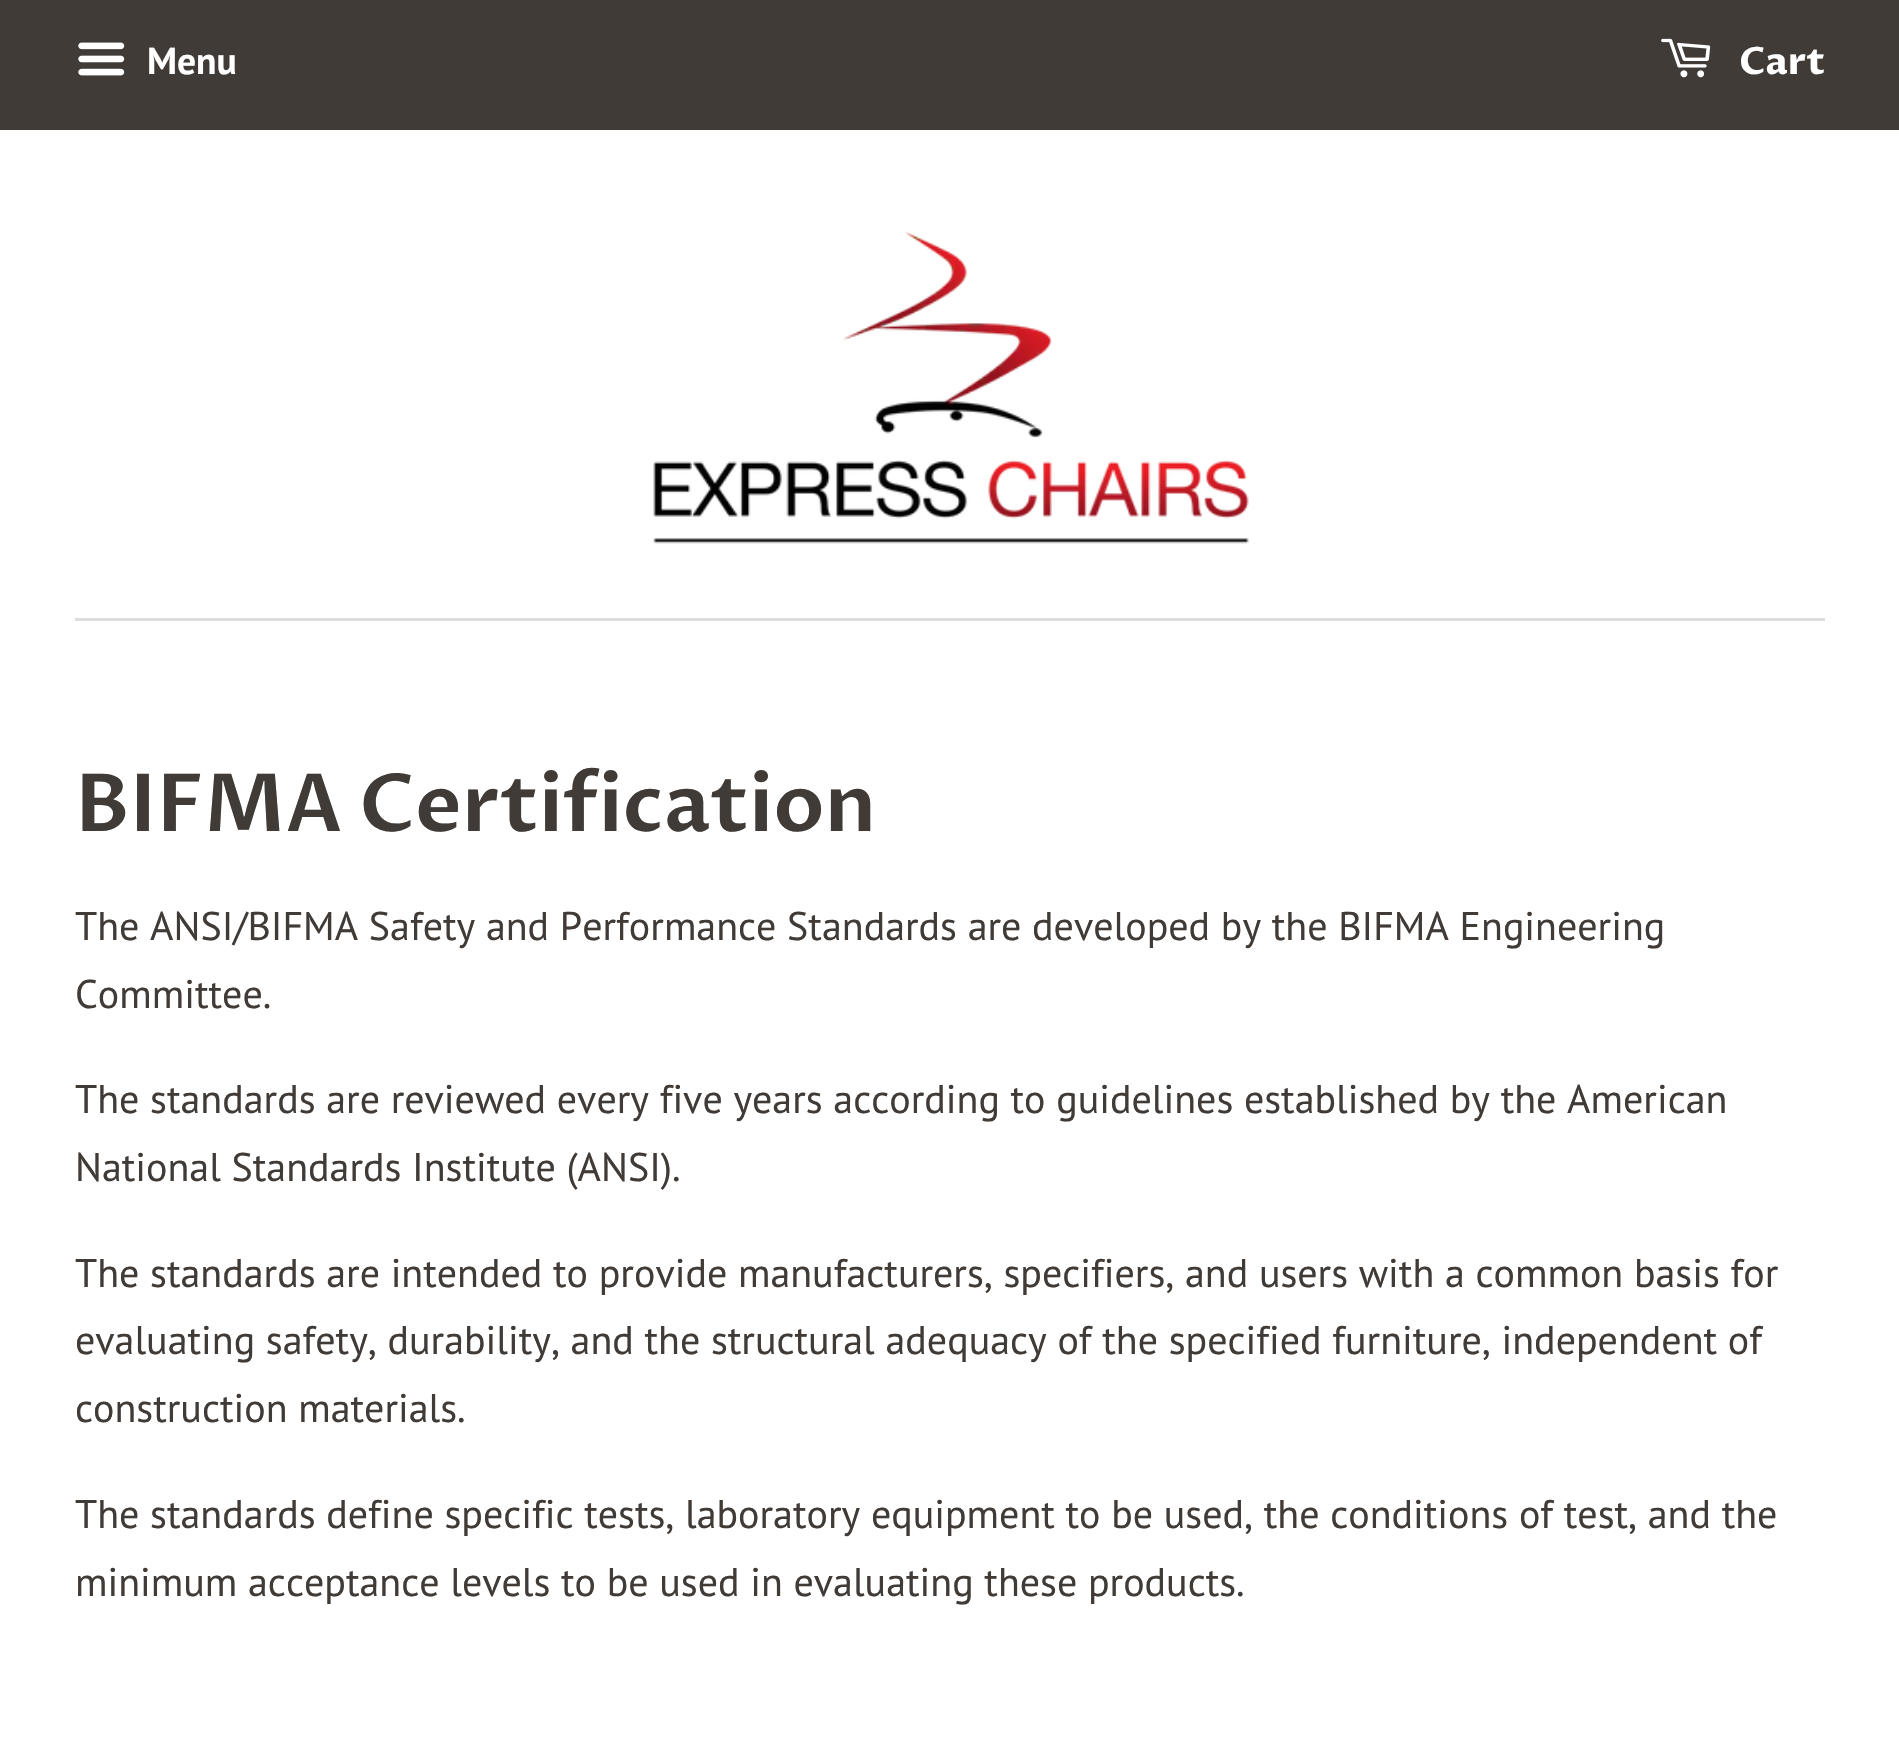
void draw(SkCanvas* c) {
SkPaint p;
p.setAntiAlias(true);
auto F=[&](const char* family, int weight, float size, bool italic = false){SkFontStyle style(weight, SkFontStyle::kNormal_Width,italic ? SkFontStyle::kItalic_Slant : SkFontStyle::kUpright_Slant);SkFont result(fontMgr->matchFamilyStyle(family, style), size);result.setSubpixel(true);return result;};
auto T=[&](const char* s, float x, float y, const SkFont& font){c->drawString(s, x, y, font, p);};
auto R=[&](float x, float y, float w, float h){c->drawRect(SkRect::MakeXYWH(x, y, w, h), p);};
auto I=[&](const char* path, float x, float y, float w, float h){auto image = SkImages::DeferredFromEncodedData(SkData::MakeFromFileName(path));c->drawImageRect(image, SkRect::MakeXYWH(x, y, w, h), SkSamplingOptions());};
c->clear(0xffffffff);
p.setColor(0xff403b37);
R(0,0,1899,130);
I("1.png",78,42,47,34);
auto f1 = F("PT Sans",700,37.5);
p.setColor(0xffffffff);
T("Menu",147,74,f1);
I("2.png",1661,38,50,40);
auto f2 = F("Proza Libre",700,37.5);
T("Cart",1739,74,f2);
p.setColor(0xffdddddd);
R(75,618,1750,3);
I("3.png",653,231,596,313);
auto f3 = F("Proza Libre",600,80);
p.setColor(0xff403b37);
T("BIFMA Certification",75,831,f3);
auto f4 = F("PT Sans",400,40);
T("The ANSI/BIFMA Safety and Performance Standards are developed by the BIFMA Engineering",75,940,f4);
T("Committee.",75,1008,f4);
T("The standards are reviewed every five years according to guidelines established by the American",75,1113,f4);
T("National Standards Institute (ANSI).",75,1181,f4);
T("The standards are intended to provide manufacturers, specifiers, and users with a common basis for",75,1287,f4);
T("evaluating safety, durability, and the structural adequacy of the specified furniture, independent of",75,1354,f4);
T("construction materials.",75,1422,f4);
T("The standards define specific tests, laboratory equipment to be used, the conditions of test, and the",75,1528,f4);
T("minimum acceptance levels to be used in evaluating these products.",75,1596,f4);
}
